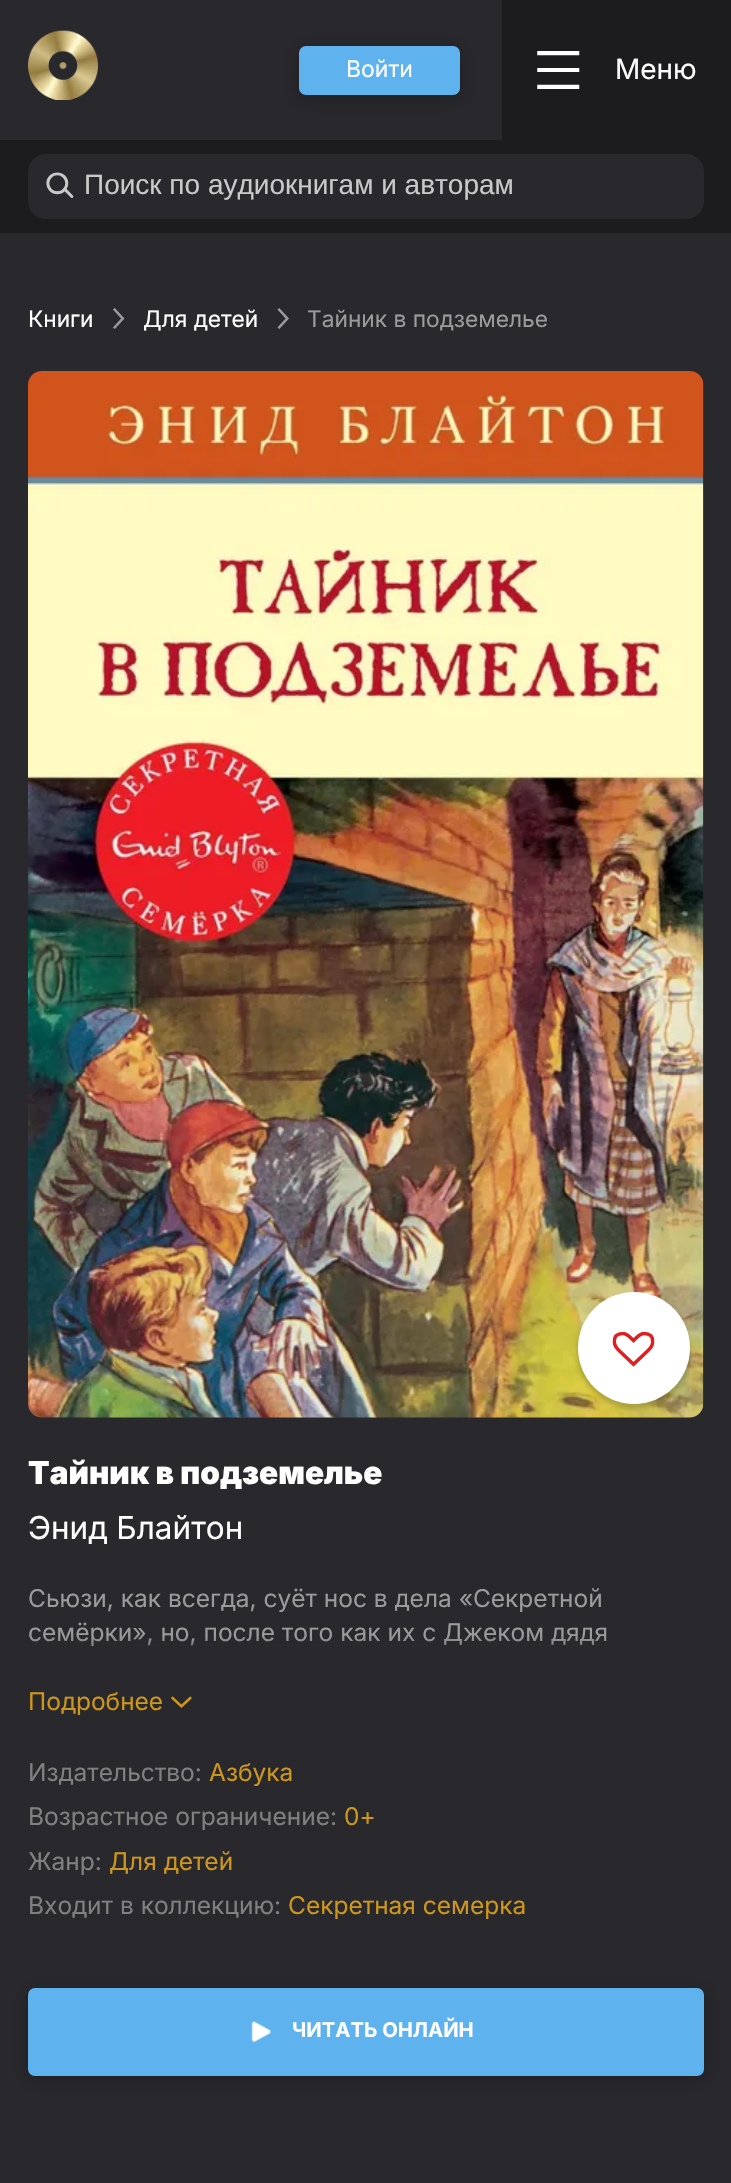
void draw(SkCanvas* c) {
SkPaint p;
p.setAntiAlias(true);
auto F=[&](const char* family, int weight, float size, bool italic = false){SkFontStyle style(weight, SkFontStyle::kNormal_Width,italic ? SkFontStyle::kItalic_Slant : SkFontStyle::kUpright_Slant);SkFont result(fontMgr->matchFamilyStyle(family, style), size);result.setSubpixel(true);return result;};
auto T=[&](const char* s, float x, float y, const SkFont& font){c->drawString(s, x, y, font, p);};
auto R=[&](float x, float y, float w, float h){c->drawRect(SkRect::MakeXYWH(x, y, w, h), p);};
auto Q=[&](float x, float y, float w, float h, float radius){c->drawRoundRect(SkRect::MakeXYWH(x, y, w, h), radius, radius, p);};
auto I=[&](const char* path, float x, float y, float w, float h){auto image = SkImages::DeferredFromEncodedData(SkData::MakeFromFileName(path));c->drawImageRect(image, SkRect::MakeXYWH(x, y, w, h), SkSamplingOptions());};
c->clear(0xff28282d);
I("1.png",28,30,70,70);
p.setColor(0x40000000);
p.setMaskFilter(SkMaskFilter::MakeBlur(kNormal_SkBlurStyle, 9));
c->drawRoundRect(SkRect::MakeXYWH(299,49,161,49),7,7,p);
p.setMaskFilter(nullptr);
p.setColor(0xff5eb2ee);
Q(299,46,161,49,7);
auto f1 = F("Inter",400,23);
p.setColor(0xffffffff);
T("Войти",346,77,f1);
p.setColor(0xff1c1c1e);
R(502,0,229,140);
I("2.png",537,51,43,38);
auto f2 = F("Inter",400,28);
p.setColor(0xffffffff);
T("Меню",615,79,f2);
p.setColor(0xff1c1c1e);
R(0,140,731,93);
p.setColor(0xff28282d);
Q(28,154,676,65,18);
I("3.png",46,172,28,26);
auto f3 = F("Liberation Sans",400,28);
p.setColor(0xffc9c9ca);
T("Поиск по аудиокнигам и авторам",84,194,f3);
auto f4 = F("Inter",400,22.75);
p.setColor(0xffffffff);
T("Книги",28,327,f4);
I("4.png",113,308,12,21);
T("Для детей",143,327,f4);
I("5.png",277,308,12,21);
p.setColor(0xff9b9b9b);
T("Тайник в подземелье",307,327,f4);
I("6.png",28,371,676,1047);
p.setColor(0x33000000);
p.setMaskFilter(SkMaskFilter::MakeBlur(kNormal_SkBlurStyle, 2.5));
c->drawRoundRect(SkRect::MakeXYWH(578,1297,112,112),56,56,p);
p.setMaskFilter(nullptr);
p.setColor(0xffffffff);
c->drawCircle(634,1348,56,p);
I("7.png",612,1331,43,36);
auto f5 = F("Inter",900,31.5);
T("Тайник в подземелье",28,1484,f5);
auto f6 = F("Inter",400,31.5);
T("Энид Блайтон",28,1539,f6);
auto f7 = F("Inter",400,24.5);
p.setColor(0xff9b9b9b);
T("Сьюзи, как всегда, суёт нос в дела «Секретной",28,1607,f7);
T("семёрки», но, после того как их с Джеком дядя",28,1641,f7);
{
const SkColor colors[] = {0x0028282d,0xff28282d};
const float stops[] = {0,1};
const SkPoint ends[] = {{366,1635}, {366,1684}};
p.setShader(SkGradientShader::MakeLinear(ends, colors, stops, 2, SkTileMode::kClamp));
p.setAlpha(255);
}
R(30,1636,577,10);
p.setShader(nullptr);
p.setColor(0xffcd971d);
T("Подробнее",28,1710,f7);
I("8.png",171,1696,21,12);
p.setColor(0xff808080);
T("Издательство:",28,1781,f7);
p.setColor(0xffcd971d);
T("Азбука",209,1781,f7);
p.setColor(0xff808080);
T("Возрастное ограничение:",28,1825,f7);
p.setColor(0xffcd971d);
T("0+",344,1825,f7);
p.setColor(0xff808080);
T("Жанр:",28,1870,f7);
p.setColor(0xffcd971d);
T("Для детей",109,1870,f7);
p.setColor(0xff808080);
T("Входит в коллекцию:",28,1914,f7);
p.setColor(0xffcd971d);
T("Секретная семерка",288,1914,f7);
p.setColor(0x40000000);
p.setMaskFilter(SkMaskFilter::MakeBlur(kNormal_SkBlurStyle, 9));
c->drawRoundRect(SkRect::MakeXYWH(28,1992,676,87),7,7,p);
p.setMaskFilter(nullptr);
p.setColor(0xff5eb2ee);
Q(28,1988,676,88,7);
I("9.png",251,2021,20,22);
auto f8 = F("Inter",700,20.25);
p.setColor(0xffffffff);
T("ЧИТАТЬ ОНЛАЙН",292,2037,f8);
}
